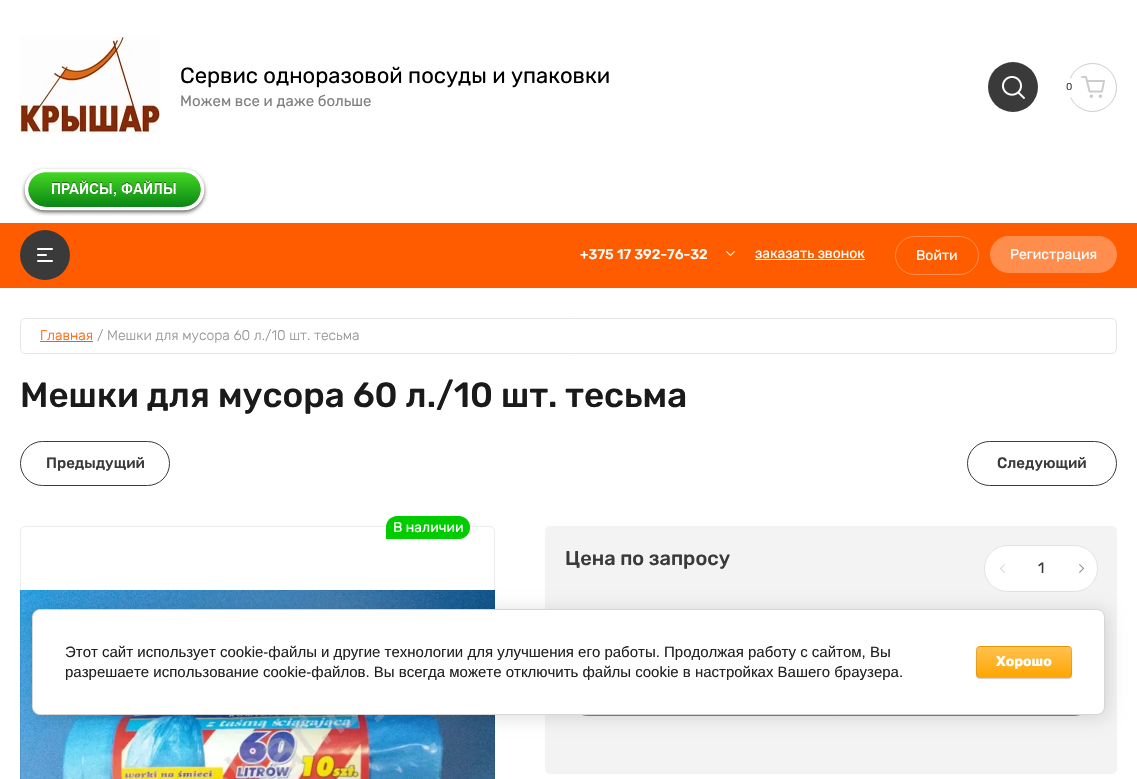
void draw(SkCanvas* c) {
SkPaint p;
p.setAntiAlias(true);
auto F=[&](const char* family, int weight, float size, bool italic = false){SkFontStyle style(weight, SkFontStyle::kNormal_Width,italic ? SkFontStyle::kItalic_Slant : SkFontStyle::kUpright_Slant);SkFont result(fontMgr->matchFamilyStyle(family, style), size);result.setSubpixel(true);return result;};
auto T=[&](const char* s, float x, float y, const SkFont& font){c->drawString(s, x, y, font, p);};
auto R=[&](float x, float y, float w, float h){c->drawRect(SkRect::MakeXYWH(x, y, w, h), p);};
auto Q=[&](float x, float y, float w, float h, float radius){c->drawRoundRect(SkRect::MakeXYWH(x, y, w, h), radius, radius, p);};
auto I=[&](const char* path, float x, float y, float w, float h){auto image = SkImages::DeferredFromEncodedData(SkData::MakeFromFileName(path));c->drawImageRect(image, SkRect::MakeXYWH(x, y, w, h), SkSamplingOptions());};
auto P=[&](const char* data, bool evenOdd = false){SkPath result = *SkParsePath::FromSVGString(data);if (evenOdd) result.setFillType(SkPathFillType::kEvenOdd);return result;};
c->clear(0xffffffff);
I("1.png",20,37,140,97);
auto f1 = F("Rubik",400,22);
p.setColor(0xff000000);
T("Сервис одноразовой посуды и упаковки",180,83,f1);
auto f2 = F("Rubik",400,15);
p.setColor(0xff808080);
T("Можем все и даже больше",180,106,f2);
p.setColor(0xff3a3a3a);
c->drawCircle(1013,87,25,p);
I("2.png",1002,76,23,23);
p.setStroke(true);
p.setStrokeWidth(1);
p.setColor(0xffcccccc);
c->drawCircle(1092.5,87.5,24,p);
p.setStroke(false);
p.setColor(0xffffffff);
c->drawCircle(1069,88,10,p);
auto f3 = F("Rubik",400,10);
p.setColor(0xff484c50);
T("0",1066,90,f3);
I("3.png",1081,76,24,22);
I("4.png",21,167,187,49);
p.setColor(0xffff5c00);
R(0,223,1137,65);
p.setColor(0xff3a3a3a);
c->drawCircle(45,255,25,p);
I("5.png",37,248,16,14);
auto f4 = F("Rubik",500,14);
p.setColor(0xffffffff);
T("+375 17 392-76-32",580,259,f4);
I("6.png",726,251,9,5);
auto f5 = F("Rubik",400,14);
T("заказать звонок",755,258,f5);
R(755,259,110,1);
p.setStroke(true);
p.setColor(0xffff8d4d);
c->drawRoundRect(SkRect::MakeXYWH(895.5,236.5,83,38),19,19,p);
p.setStroke(false);
p.setColor(0xffffffff);
T("Войти",916,260,f5);
p.setColor(0xffff8d4d);
Q(990,236,127,37,18.5);
p.setColor(0xffffffff);
T("Регистрация",1010,259,f5);
p.setStroke(true);
p.setColor(0xffe6e6e6);
c->drawRoundRect(SkRect::MakeXYWH(20.5,318.5,1096,35),4.5,4.5,p);
auto f6 = F("Rubik",300,14);
p.setStroke(false);
p.setColor(0xffff5c00);
T("Главная",40,340,f6);
R(40,341,53,1);
p.setColor(0xff959595);
T("/ Мешки для мусора 60 л./10 шт. тесьма",97,340,f6);
auto f7 = F("Rubik",500,35);
p.setColor(0xff1a1a1a);
T("Мешки для мусора 60 л./10 шт. тесьма",20,407,f7);
p.setStroke(true);
p.setColor(0xff3a3a3a);
c->drawRoundRect(SkRect::MakeXYWH(20.5,441.5,149,44),22,22,p);
auto f8 = F("Rubik",500,15);
p.setStroke(false);
T("Предыдущий",46,468,f8);
p.setStroke(true);
c->drawRoundRect(SkRect::MakeXYWH(967.5,441.5,149,44),22,22,p);
p.setStroke(false);
T("Следующий",997,468,f8);
I("7.png",20,590,475,189);
p.setStroke(true);
p.setColor(0x12000000);
c->drawRoundRect(SkRect::MakeXYWH(20.5,526.5,474,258),4.5,4.5,p);
p.setStroke(false);
p.setColor(0xff00cc00);
c->drawPath(P("M397 516h62c6 0 11 5 11 11v1c0 6-5 11-11 11h-73v-12c0-6 5-11 11-11z"),p);
p.setColor(0xffffffff);
T("В наличии",393,532,f5);
p.setColor(0xfff3f3f3);
Q(545,526,572,248,5);
auto f9 = F("Rubik",500,20);
p.setColor(0xff3a3a3a);
T("Цена по запросу",565,565,f9);
p.setStroke(true);
p.setColor(0xffe2e2e2);
c->drawRoundRect(SkRect::MakeXYWH(984.5,545.5,113,46),23,23,p);
p.setStroke(false);
p.setColor(0xffffffff);
Q(985,546,112,45,22.5);
I("8.png",1000,564,5,9);
p.setColor(0xff3a3a3a);
T("1",1038,573,f2);
I("9.png",1079,564,5,9);
p.setStroke(true);
p.setColor(0xffff5c00);
c->drawRoundRect(SkRect::MakeXYWH(565.5,670.5,531,45),22.5,22.5,p);
p.setStroke(false);
p.setColor(0x24000000);
p.setMaskFilter(SkMaskFilter::MakeBlur(kNormal_SkBlurStyle, 9));
c->drawRoundRect(SkRect::MakeXYWH(34,611,1073,106),8,8,p);
p.setMaskFilter(nullptr);
p.setColor(0xffffffff);
c->drawRoundRect(SkRect::MakeXYWH(32.5,609.5,1072,105),7.5,7.5,p);
p.setStroke(true);
p.setColor(0xffd6d6d6);
c->drawRoundRect(SkRect::MakeXYWH(32.5,609.5,1072,105),7.5,7.5,p);
auto f10 = F("Liberation Sans",400,15);
p.setStroke(false);
p.setColor(0xff212121);
T("Этот сайт использует cookie-файлы и другие технологии для улучшения его работы. Продолжая работу с сайтом, Вы",65,657,f10);
T("разрешаете использование cookie-файлов. Вы всегда можете отключить файлы cookie в настройках Вашего браузера.",65,677,f10);
p.setColor(0x33000000);
p.setMaskFilter(SkMaskFilter::MakeBlur(kNormal_SkBlurStyle, .5));
c->drawRoundRect(SkRect::MakeXYWH(976,647,96,32),4,4,p);
p.setMaskFilter(nullptr);
c->save();
c->clipPath(P("M980 646h88c2 0 4 2 4 4v24c0 2-2 4-4 4h-88c-2 0-4-2-4-4v-24c0-2 2-4 4-4z"),true);
{
const SkColor colors[] = {0xffffc14e,0xffffa601};
const float stops[] = {0,1};
const SkPoint ends[] = {{1024,617}, {1024,647}};
p.setShader(SkGradientShader::MakeLinear(ends, colors, stops, 2, SkTileMode::kClamp));
p.setAlpha(255);
}
R(976,646,96,1);
{
const SkColor colors[] = {0xffffc14e,0xffffa601};
const float stops[] = {0,1};
const SkPoint ends[] = {{1024,647}, {1024,677}};
p.setShader(SkGradientShader::MakeLinear(ends, colors, stops, 2, SkTileMode::kClamp));
p.setAlpha(255);
}
R(976,647,96,30);
{
const SkColor colors[] = {0xffffc14e,0xffffa601};
const float stops[] = {0,1};
const SkPoint ends[] = {{1024,677}, {1024,707}};
p.setShader(SkGradientShader::MakeLinear(ends, colors, stops, 2, SkTileMode::kClamp));
p.setAlpha(255);
}
R(976,677,96,1);
c->restore();
p.setStroke(true);
p.setShader(nullptr);
p.setColor(0x1a000000);
c->drawRoundRect(SkRect::MakeXYWH(976.5,646.5,95,31),3.5,3.5,p);
auto f11 = F("Rubik",700,14);
p.setStroke(false);
p.setColor(0xffffffff);
T("Хорошо",996,666,f11);
}
